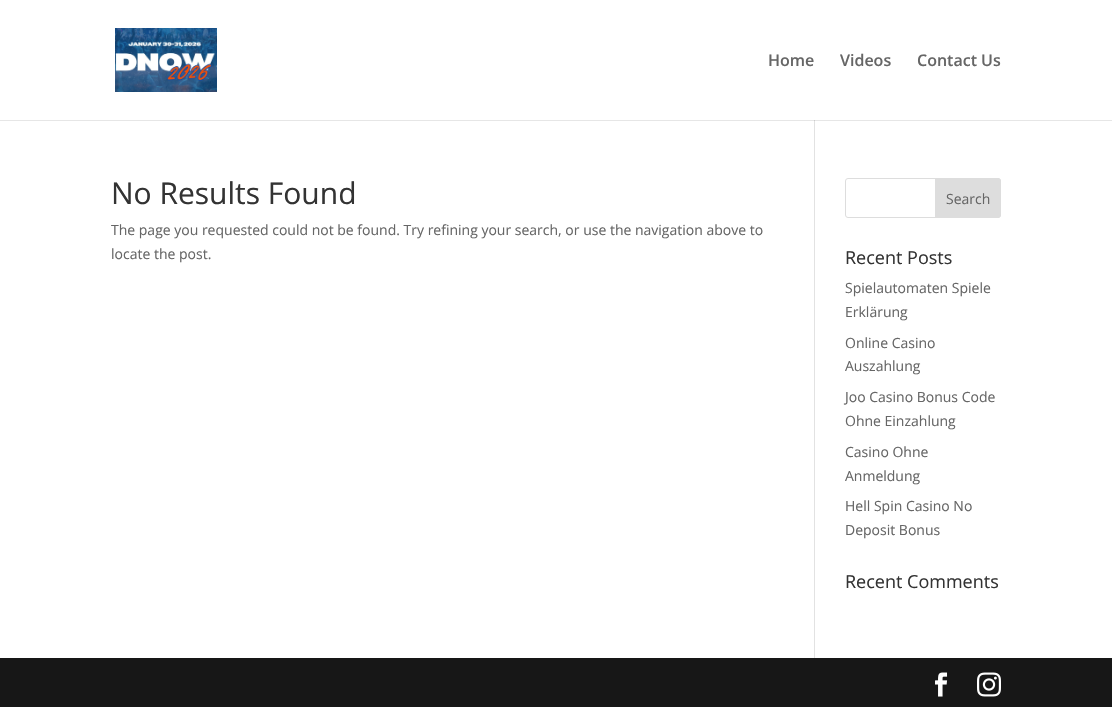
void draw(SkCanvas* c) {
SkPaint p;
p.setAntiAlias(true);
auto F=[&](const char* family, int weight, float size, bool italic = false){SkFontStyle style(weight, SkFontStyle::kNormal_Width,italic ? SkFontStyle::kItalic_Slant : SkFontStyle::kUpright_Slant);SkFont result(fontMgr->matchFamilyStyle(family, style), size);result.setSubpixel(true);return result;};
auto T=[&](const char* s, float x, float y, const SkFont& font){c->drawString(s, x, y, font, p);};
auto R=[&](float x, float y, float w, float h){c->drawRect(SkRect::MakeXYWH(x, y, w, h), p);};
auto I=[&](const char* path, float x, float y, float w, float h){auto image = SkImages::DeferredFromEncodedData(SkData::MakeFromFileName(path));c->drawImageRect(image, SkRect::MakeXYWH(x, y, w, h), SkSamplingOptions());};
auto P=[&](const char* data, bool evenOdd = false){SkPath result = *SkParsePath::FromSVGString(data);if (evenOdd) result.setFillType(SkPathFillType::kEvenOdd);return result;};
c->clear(0xffffffff);
p.setColor(0xffe6e6e6);
R(0,120,1112,1);
I("1.png",115,28,102,64);
auto f1 = F("Open Sans",600,16);
p.setColor(0xff666666);
T("Home",768,66,f1);
T("Videos",840,66,f1);
T("Contact Us",917,66,f1);
p.setColor(0xffe2e2e2);
R(814,120,1,538);
p.setColor(0xffcbcbcb);
R(814,120,1,1);
auto f2 = F("Open Sans",400,30);
p.setColor(0xff333333);
T("No Results Found",111,204,f2);
auto f3 = F("Open Sans",400,14);
p.setColor(0xff666666);
T("The page you requested could not be found. Try refining your search, or use the navigation above to",111,235,f3);
T("locate the post.",111,259,f3);
p.setStroke(true);
p.setStrokeWidth(1);
p.setColor(0xffdddddd);
c->drawRoundRect(SkRect::MakeXYWH(845.5,178.5,155,39),2.5,2.5,p);
p.setStroke(false);
c->drawPath(P("M935.5 178.5h62.5c1.5 0 2.5 1 2.5 2.5v34c0 1.5-1 2.5-2.5 2.5h-62.5z"),p);
p.setStroke(true);
c->drawPath(P("M935.5 178.5h62.5c1.5 0 2.5 1 2.5 2.5v34c0 1.5-1 2.5-2.5 2.5h-62.5z"),p);
p.setStroke(false);
p.setColor(0xff666666);
T("Search",946,204,f3);
auto f4 = F("Open Sans",400,18);
p.setColor(0xff333333);
T("Recent Posts",845,264,f4);
p.setColor(0xff666666);
T("Spielautomaten Spiele",845,293,f3);
T("Erklärung",845,317,f3);
T("Online Casino",845,348,f3);
T("Auszahlung",845,371,f3);
T("Joo Casino Bonus Code",845,402,f3);
T("Ohne Einzahlung",845,426,f3);
T("Casino Ohne",845,457,f3);
T("Anmeldung",845,481,f3);
T("Hell Spin Casino No",845,511,f3);
T("Deposit Bonus",845,535,f3);
p.setColor(0xff333333);
T("Recent Comments",845,588,f4);
p.setColor(0xff171717);
R(0,658,1112,49);
I("2.png",935,672,13,25);
I("3.png",977,672,24,25);
}
